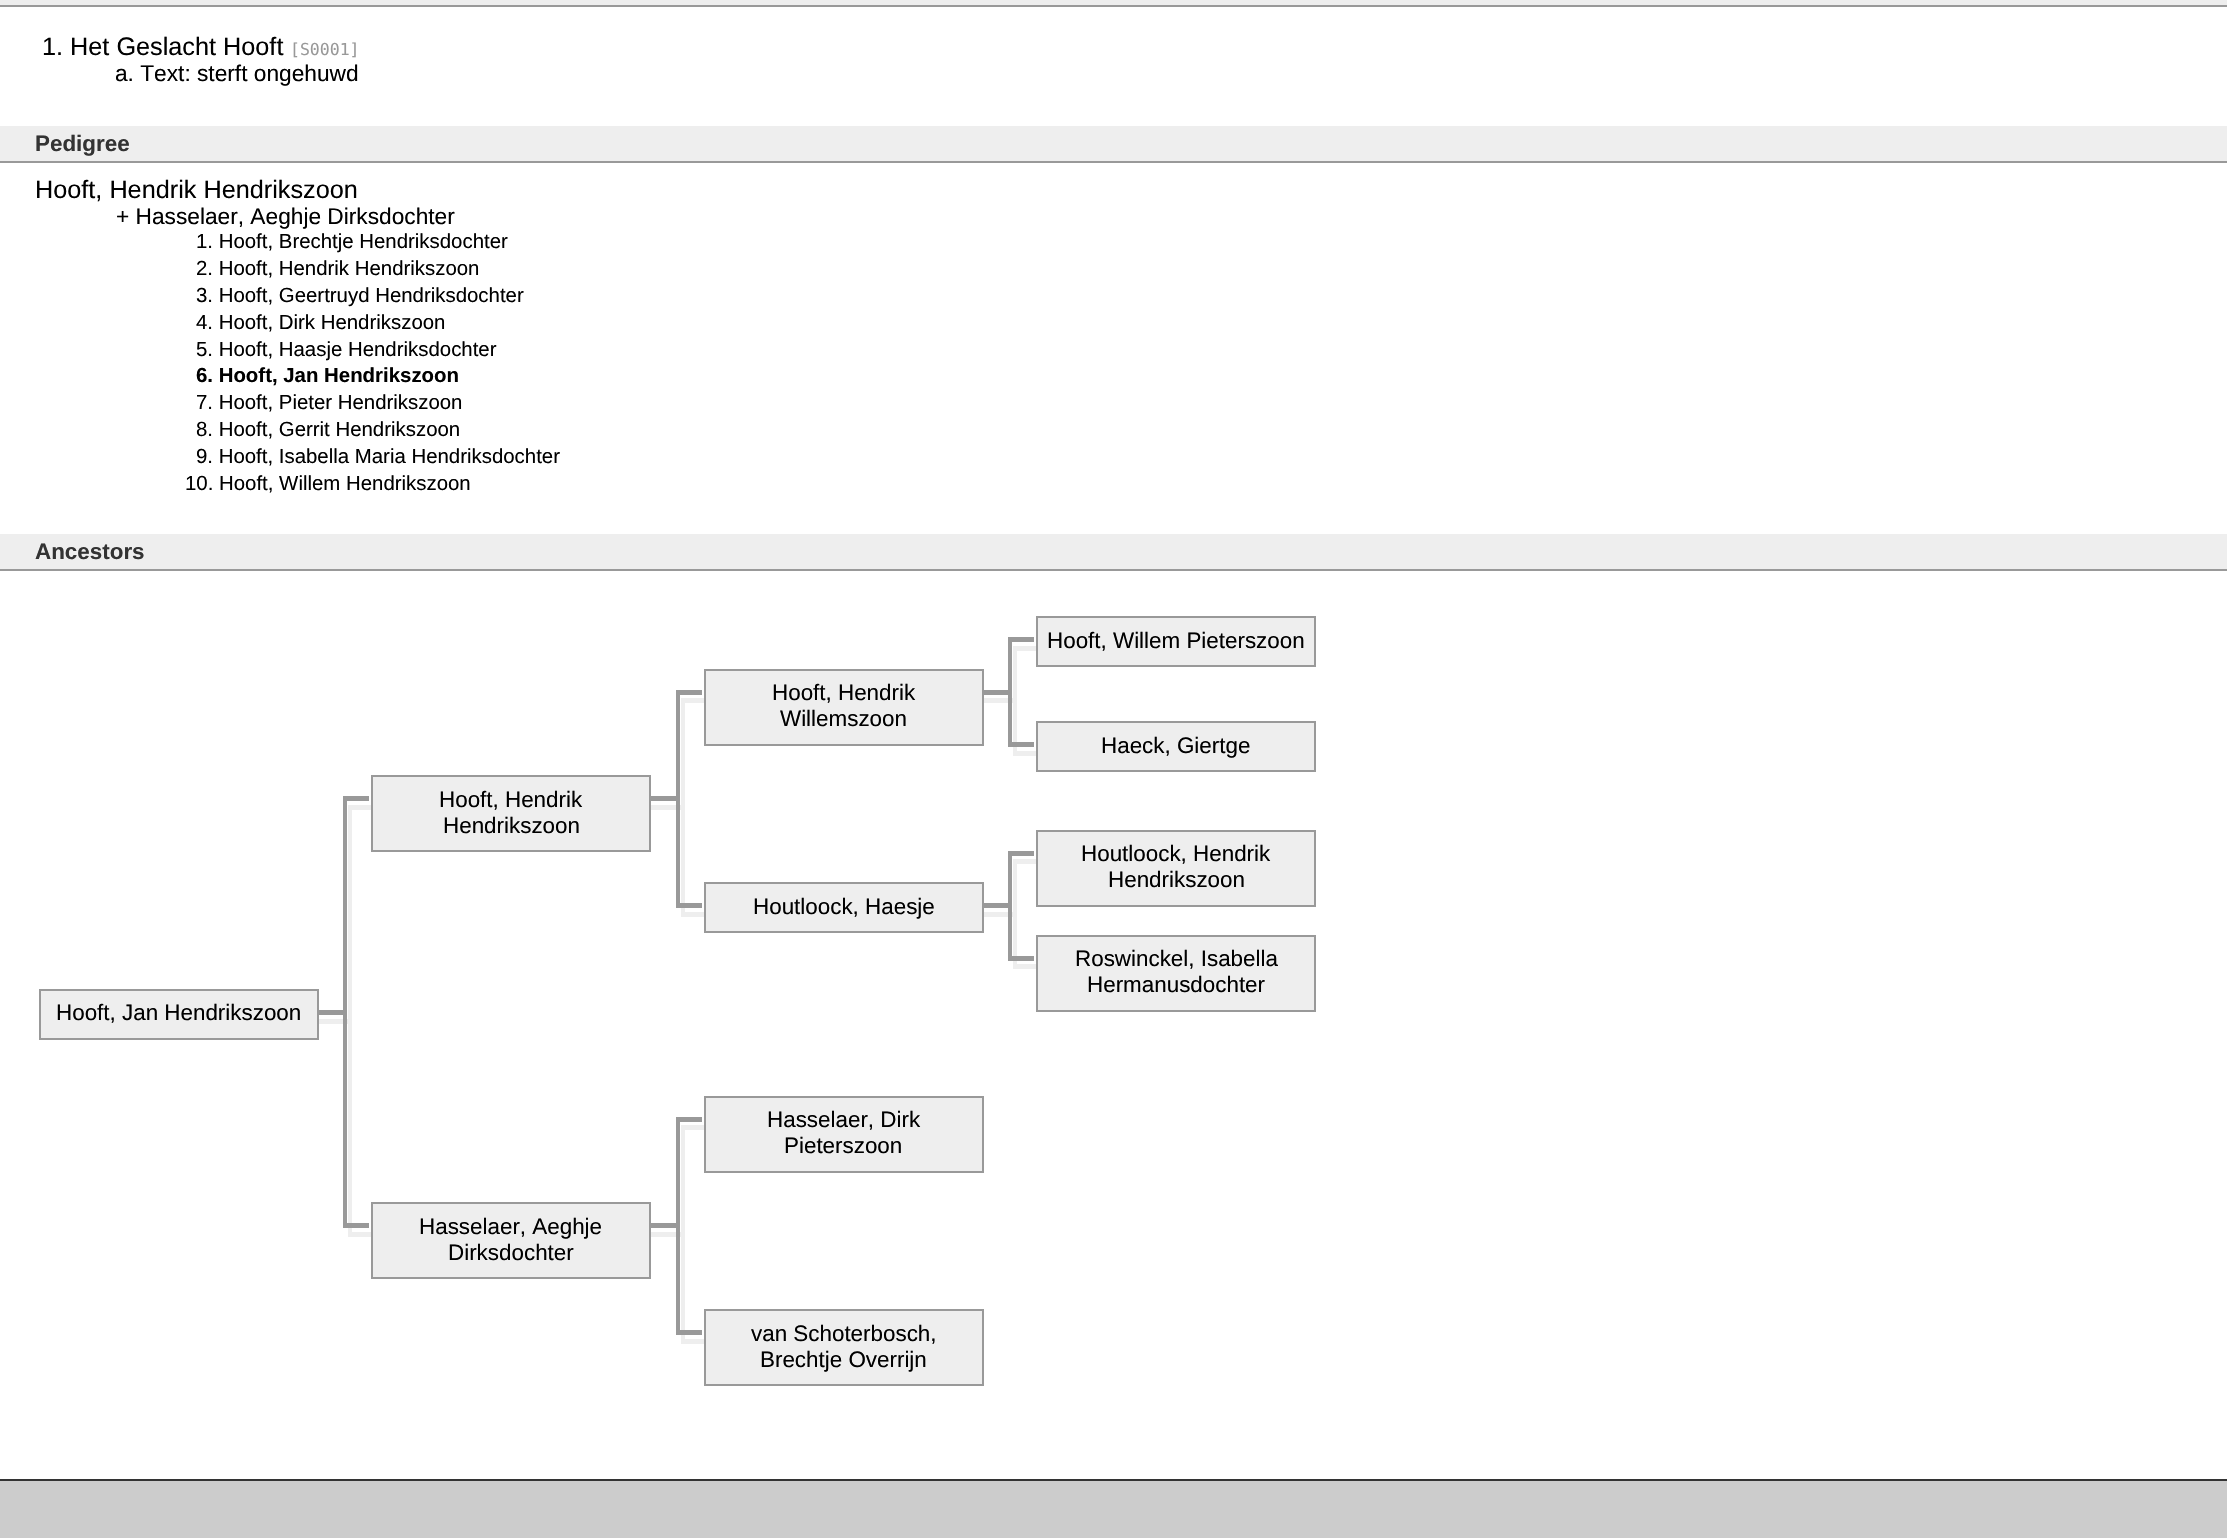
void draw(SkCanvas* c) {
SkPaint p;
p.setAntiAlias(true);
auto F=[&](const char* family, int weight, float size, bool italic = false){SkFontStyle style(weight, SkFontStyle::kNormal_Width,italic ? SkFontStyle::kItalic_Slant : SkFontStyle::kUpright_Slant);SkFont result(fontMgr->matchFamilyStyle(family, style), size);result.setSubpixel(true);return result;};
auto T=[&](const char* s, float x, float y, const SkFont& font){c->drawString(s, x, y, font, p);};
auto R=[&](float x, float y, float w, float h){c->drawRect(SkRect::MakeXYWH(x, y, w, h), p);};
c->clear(0xffffffff);
p.setColor(0xffeeeeee);
R(0,0,2227,5);
p.setColor(0xff999999);
R(0,5,2227,2);
auto f1 = F("Liberation Sans",400,25.25);
p.setColor(0xff000000);
T("1. Het Geslacht Hooft",42,55,f1);
auto f2 = F("DejaVu Sans Mono",400,16.5);
p.setColor(0xff999999);
T("[S0001]",290,55,f2);
auto f3 = F("Liberation Sans",400,22.7);
p.setColor(0xff000000);
T("a. Text: sterft ongehuwd",115,81,f3);
p.setColor(0xffeeeeee);
R(0,126,2227,35);
p.setColor(0xff999999);
R(0,161,2227,2);
auto f4 = F("Liberation Sans",700,22.4);
p.setColor(0xff333333);
T("Pedigree",35,151,f4);
p.setColor(0xff000000);
T("Hooft, Hendrik Hendrikszoon",35,198,f1);
T("+ Hasselaer, Aeghje Dirksdochter",116,224,f3);
auto f5 = F("Liberation Sans",400,20.4);
T("1. Hooft, Brechtje Hendriksdochter",196,248,f5);
T("2. Hooft, Hendrik Hendrikszoon",196,275,f5);
T("3. Hooft, Geertruyd Hendriksdochter",196,302,f5);
T("4. Hooft, Dirk Hendrikszoon",196,329,f5);
T("5. Hooft, Haasje Hendriksdochter",196,356,f5);
auto f6 = F("Liberation Sans",700,20.4);
T("6. Hooft, Jan Hendrikszoon",196,382,f6);
T("7. Hooft, Pieter Hendrikszoon",196,409,f5);
T("8. Hooft, Gerrit Hendrikszoon",196,436,f5);
T("9. Hooft, Isabella Maria Hendriksdochter",196,463,f5);
T("10. Hooft, Willem Hendrikszoon",185,490,f5);
p.setColor(0xffeeeeee);
R(0,534,2227,35);
p.setColor(0xff999999);
R(0,569,2227,2);
p.setColor(0xff333333);
T("Ancestors",35,559,f4);
p.setColor(0xff999999);
R(1008,637,26,5);
p.setColor(0xffeeeeee);
c->drawRect(SkRect::MakeXYWH(1037,617,278,49),p);
p.setStroke(true);
p.setStrokeWidth(2);
p.setColor(0xff999999);
c->drawRect(SkRect::MakeXYWH(1037,617,278,49),p);
auto f7 = F("Liberation Sans",400,22.4);
p.setStroke(false);
p.setColor(0xff000000);
T("Hooft, Willem Pieterszoon",1047,648,f7);
p.setColor(0xffeeeeee);
R(978,698,35,5);
p.setColor(0xff999999);
R(1008,637,4,105);
p.setColor(0xffeeeeee);
R(1013,646,23,5);
p.setColor(0xff999999);
R(676,690,26,5);
R(982,690,26,5);
p.setColor(0xffeeeeee);
c->drawRect(SkRect::MakeXYWH(705,670,278,75),p);
p.setStroke(true);
p.setColor(0xff999999);
c->drawRect(SkRect::MakeXYWH(705,670,278,75),p);
p.setStroke(false);
p.setColor(0xff000000);
T("Hooft, Hendrik",772,700,f7);
T("Willemszoon",780,726,f7);
p.setColor(0xffeeeeee);
R(1013,646,4,105);
R(646,805,35,5);
p.setColor(0xff999999);
R(676,690,4,213);
p.setColor(0xffeeeeee);
R(681,698,23,5);
R(681,698,4,214);
p.setColor(0xff999999);
R(1008,742,26,5);
p.setColor(0xffeeeeee);
c->drawRect(SkRect::MakeXYWH(1037,722,278,49),p);
p.setStroke(true);
p.setColor(0xff999999);
c->drawRect(SkRect::MakeXYWH(1037,722,278,49),p);
p.setStroke(false);
p.setColor(0xff000000);
T("Haeck, Giertge",1101,753,f7);
p.setColor(0xffeeeeee);
R(1013,751,23,5);
p.setColor(0xff999999);
R(343,796,26,5);
R(649,796,27,5);
p.setColor(0xffeeeeee);
c->drawRect(SkRect::MakeXYWH(372,776,278,75),p);
p.setStroke(true);
p.setColor(0xff999999);
c->drawRect(SkRect::MakeXYWH(372,776,278,75),p);
p.setStroke(false);
p.setColor(0xff000000);
T("Hooft, Hendrik",439,807,f7);
T("Hendrikszoon",443,833,f7);
p.setColor(0xffeeeeee);
R(313,1019,35,5);
p.setColor(0xff999999);
R(343,796,4,427);
p.setColor(0xffeeeeee);
R(348,805,23,5);
R(348,805,4,427);
p.setColor(0xff999999);
R(1008,851,26,5);
p.setColor(0xffeeeeee);
c->drawRect(SkRect::MakeXYWH(1037,831,278,75),p);
p.setStroke(true);
p.setColor(0xff999999);
c->drawRect(SkRect::MakeXYWH(1037,831,278,75),p);
p.setStroke(false);
p.setColor(0xff000000);
T("Houtloock, Hendrik",1081,861,f7);
T("Hendrikszoon",1108,887,f7);
p.setColor(0xffeeeeee);
R(978,912,35,5);
p.setColor(0xff999999);
R(1008,851,4,105);
p.setColor(0xffeeeeee);
R(1013,859,23,5);
p.setColor(0xff999999);
R(676,903,26,5);
R(982,903,26,5);
p.setColor(0xffeeeeee);
c->drawRect(SkRect::MakeXYWH(705,883,278,49),p);
p.setStroke(true);
p.setColor(0xff999999);
c->drawRect(SkRect::MakeXYWH(705,883,278,49),p);
p.setStroke(false);
p.setColor(0xff000000);
T("Houtloock, Haesje",753,914,f7);
p.setColor(0xffeeeeee);
R(1013,859,4,105);
R(681,912,23,5);
p.setColor(0xff999999);
R(1008,956,26,5);
p.setColor(0xffeeeeee);
c->drawRect(SkRect::MakeXYWH(1037,936,278,75),p);
p.setStroke(true);
p.setColor(0xff999999);
c->drawRect(SkRect::MakeXYWH(1037,936,278,75),p);
p.setStroke(false);
p.setColor(0xff000000);
T("Roswinckel, Isabella",1075,966,f7);
T("Hermanusdochter",1087,992,f7);
p.setColor(0xffeeeeee);
R(1013,964,23,5);
p.setColor(0xff999999);
R(317,1010,26,5);
p.setColor(0xffeeeeee);
c->drawRect(SkRect::MakeXYWH(40,990,278,49),p);
p.setStroke(true);
p.setColor(0xff999999);
c->drawRect(SkRect::MakeXYWH(40,990,278,49),p);
p.setStroke(false);
p.setColor(0xff000000);
T("Hooft, Jan Hendrikszoon",56,1020,f7);
p.setColor(0xff999999);
R(676,1117,26,5);
p.setColor(0xffeeeeee);
c->drawRect(SkRect::MakeXYWH(705,1097,278,75),p);
p.setStroke(true);
p.setColor(0xff999999);
c->drawRect(SkRect::MakeXYWH(705,1097,278,75),p);
p.setStroke(false);
p.setColor(0xff000000);
T("Hasselaer, Dirk",767,1127,f7);
T("Pieterszoon",784,1153,f7);
p.setColor(0xffeeeeee);
R(646,1232,35,5);
p.setColor(0xff999999);
R(676,1117,4,213);
p.setColor(0xffeeeeee);
R(681,1125,23,5);
p.setColor(0xff999999);
R(343,1223,26,5);
R(649,1223,27,5);
p.setColor(0xffeeeeee);
c->drawRect(SkRect::MakeXYWH(372,1203,278,75),p);
p.setStroke(true);
p.setColor(0xff999999);
c->drawRect(SkRect::MakeXYWH(372,1203,278,75),p);
p.setStroke(false);
p.setColor(0xff000000);
T("Hasselaer, Aeghje",419,1234,f7);
T("Dirksdochter",448,1260,f7);
p.setColor(0xffeeeeee);
R(681,1125,4,214);
R(348,1232,23,5);
p.setColor(0xff999999);
R(676,1330,26,5);
p.setColor(0xffeeeeee);
c->drawRect(SkRect::MakeXYWH(705,1310,278,75),p);
p.setStroke(true);
p.setColor(0xff999999);
c->drawRect(SkRect::MakeXYWH(705,1310,278,75),p);
p.setStroke(false);
p.setColor(0xff000000);
T("van Schoterbosch,",751,1341,f7);
T("Brechtje Overrijn",760,1367,f7);
p.setColor(0xffeeeeee);
R(681,1339,23,5);
p.setColor(0xffcccccc);
R(0,1481,2227,57);
p.setColor(0xff333333);
R(0,1479,2227,2);
}
